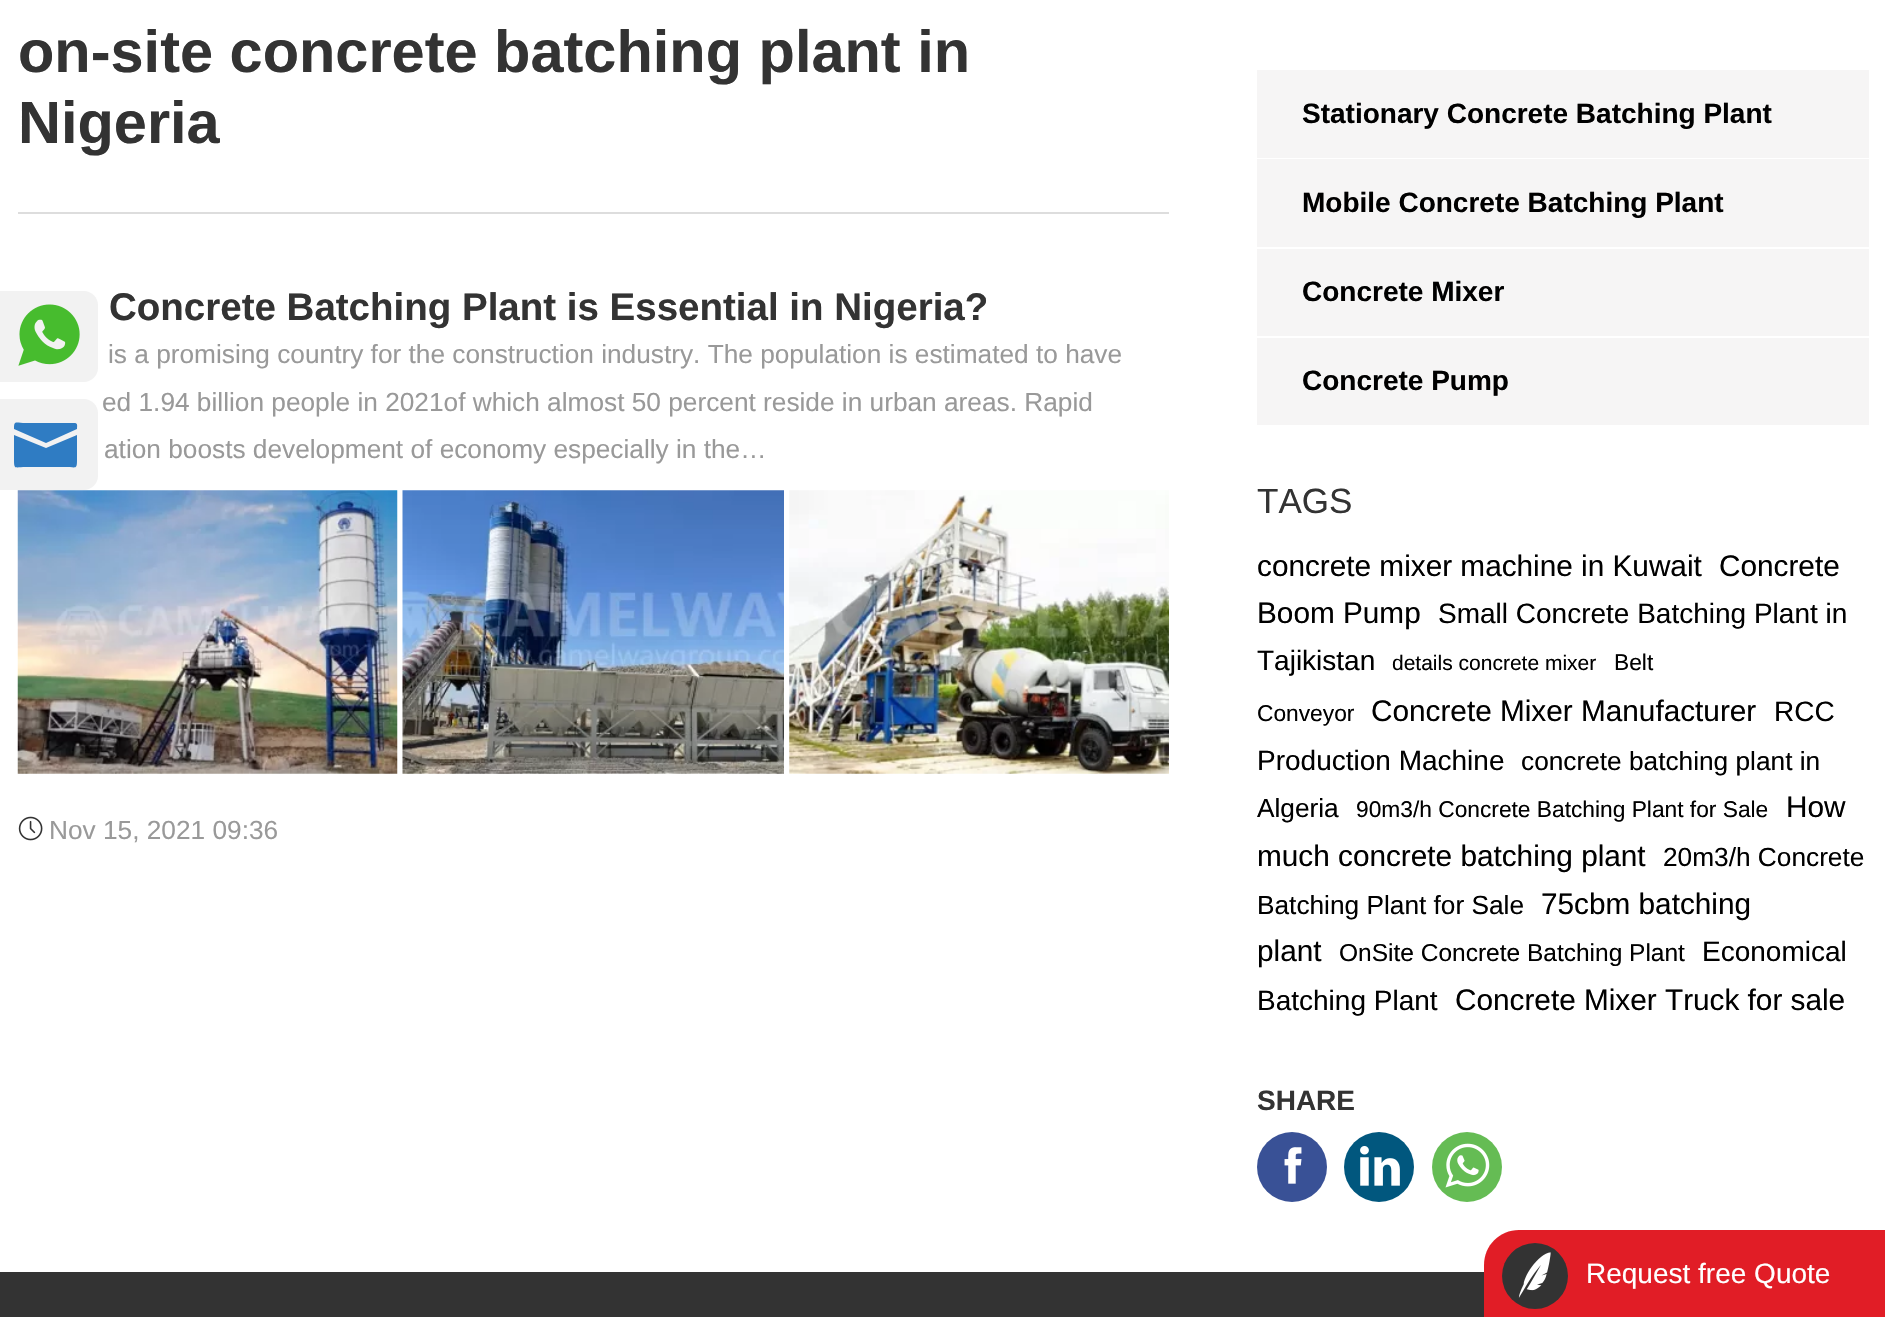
void draw(SkCanvas* c) {
SkPaint p;
p.setAntiAlias(true);
auto F=[&](const char* family, int weight, float size, bool italic = false){SkFontStyle style(weight, SkFontStyle::kNormal_Width,italic ? SkFontStyle::kItalic_Slant : SkFontStyle::kUpright_Slant);SkFont result(fontMgr->matchFamilyStyle(family, style), size);result.setSubpixel(true);return result;};
auto T=[&](const char* s, float x, float y, const SkFont& font){c->drawString(s, x, y, font, p);};
auto R=[&](float x, float y, float w, float h){c->drawRect(SkRect::MakeXYWH(x, y, w, h), p);};
auto I=[&](const char* path, float x, float y, float w, float h){auto image = SkImages::DeferredFromEncodedData(SkData::MakeFromFileName(path));c->drawImageRect(image, SkRect::MakeXYWH(x, y, w, h), SkSamplingOptions());};
auto P=[&](const char* data, bool evenOdd = false){SkPath result = *SkParsePath::FromSVGString(data);if (evenOdd) result.setFillType(SkPathFillType::kEvenOdd);return result;};
c->clear(0xffffffff);
auto f1 = F("Liberation Sans",700,59.5);
p.setColor(0xff333333);
T("on-site concrete batching plant in",18,72,f1);
T("Nigeria",18,143,f1);
p.setColor(0xffdddddd);
R(18,212,1151,2);
auto f2 = F("Liberation Sans",700,38.5);
p.setColor(0xff333333);
T("Concrete Batching Plant is Essential in Nigeria?",109,320,f2);
auto f3 = F("Liberation Sans",400,26.25);
p.setColor(0xff999999);
T("is a promising country for the construction industry. The population is estimated to have",108,363,f3);
T("ed 1.94 billion people in 2021of which almost 50 percent reside in urban areas. Rapid",102,411,f3);
T("ation boosts development of economy especially in the…",104,458,f3);
I("1.png",17,490,381,284);
I("2.png",402,490,382,284);
I("3.png",789,490,380,284);
I("4.png",18,816,25,25);
T("Nov 15, 2021 09:36",49,839,f3);
p.setColor(0xfff6f5f5);
R(1257,70,612,88);
auto f4 = F("Liberation Sans",700,28);
p.setColor(0xff000000);
T("Stationary Concrete Batching Plant",1302,123,f4);
p.setColor(0xfff6f5f5);
R(1257,159,612,88);
p.setColor(0xff000000);
T("Mobile Concrete Batching Plant",1302,212,f4);
p.setColor(0xfff6f5f5);
R(1257,249,612,87);
p.setColor(0xff000000);
T("Concrete Mixer",1302,301,f4);
p.setColor(0xfff6f5f5);
R(1257,338,612,87);
p.setColor(0xff000000);
T("Concrete Pump",1302,390,f4);
auto f5 = F("Liberation Sans",400,35);
p.setColor(0xff333333);
T("TAGS",1257,513,f5);
auto f6 = F("Liberation Sans",400,29.75);
p.setColor(0xff000000);
T("concrete mixer machine in Kuwait",1257,576,f6);
T("Concrete",1719,576,f6);
T("Boom Pump",1257,623,f6);
auto f7 = F("Liberation Sans",400,28);
T("Small Concrete Batching Plant in",1438,623,f7);
T("Tajikistan",1257,670,f7);
auto f8 = F("Liberation Sans",400,21);
T("details concrete mixer",1392,670,f8);
auto f9 = F("Liberation Sans",400,22.75);
T("Belt",1614,670,f9);
T("Conveyor",1257,721,f9);
T("Concrete Mixer Manufacturer",1371,721,f6);
T("RCC",1774,721,f7);
T("Production Machine",1257,770,f7);
T("concrete batching plant in",1521,770,f3);
T("Algeria",1257,817,f3);
T("90m3/h Concrete Batching Plant for Sale",1356,817,f9);
T("How",1786,817,f6);
T("much concrete batching plant",1257,866,f6);
T("20m3/h Concrete",1663,866,f3);
T("Batching Plant for Sale",1257,914,f3);
T("75cbm batching",1541,914,f6);
T("plant",1257,961,f6);
auto f10 = F("Liberation Sans",400,24.5);
T("OnSite Concrete Batching Plant",1339,961,f10);
T("Economical",1702,961,f7);
T("Batching Plant",1257,1010,f7);
T("Concrete Mixer Truck for sale",1455,1010,f6);
p.setColor(0xff333333);
T("SHARE",1257,1110,f4);
p.setColor(0xff395196);
c->drawCircle(1292,1167,35,p);
I("5.png",1284,1147,18,37);
p.setColor(0xff01577e);
c->drawCircle(1379,1167,35,p);
I("6.png",1360,1146,40,40);
p.setColor(0xff65bc54);
c->drawCircle(1467,1167,35,p);
I("7.png",1445,1143,45,45);
p.setColor(0xfff2f2f2);
c->drawPath(P("M0 291h84c7.5 0 14 6.5 14 14v63c0 7.5-6.5 14-14 14h-84z"),p);
I("8.png",18,304,62,62);
c->drawPath(P("M0 399h84c7.5 0 14 6.5 14 14v63c0 7.5-6.5 14-14 14h-84z"),p);
p.setColor(0xff2f7cc3);
c->drawPath(P("M14 435v25c0 10 1 7 12 7h39c11 0 12 3 12-7v-25l-31 13zm61-12h-49c-11 0-12-3-12 6l32 14l31-14c0-2 1-6-2-6z"),p);
p.setColor(0xff333333);
R(0,1272,1484,45);
p.setColor(0xffe11d26);
c->drawPath(P("M1519 1230h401v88h-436v-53c0-19.5 15.5-35 35-35z"),p);
p.setColor(0xff333333);
c->drawCircle(1535,1276,33,p);
I("9.png",1518,1252,33,46);
p.setColor(0xffffffff);
T("Request free Quote",1586,1283,f7);
}
